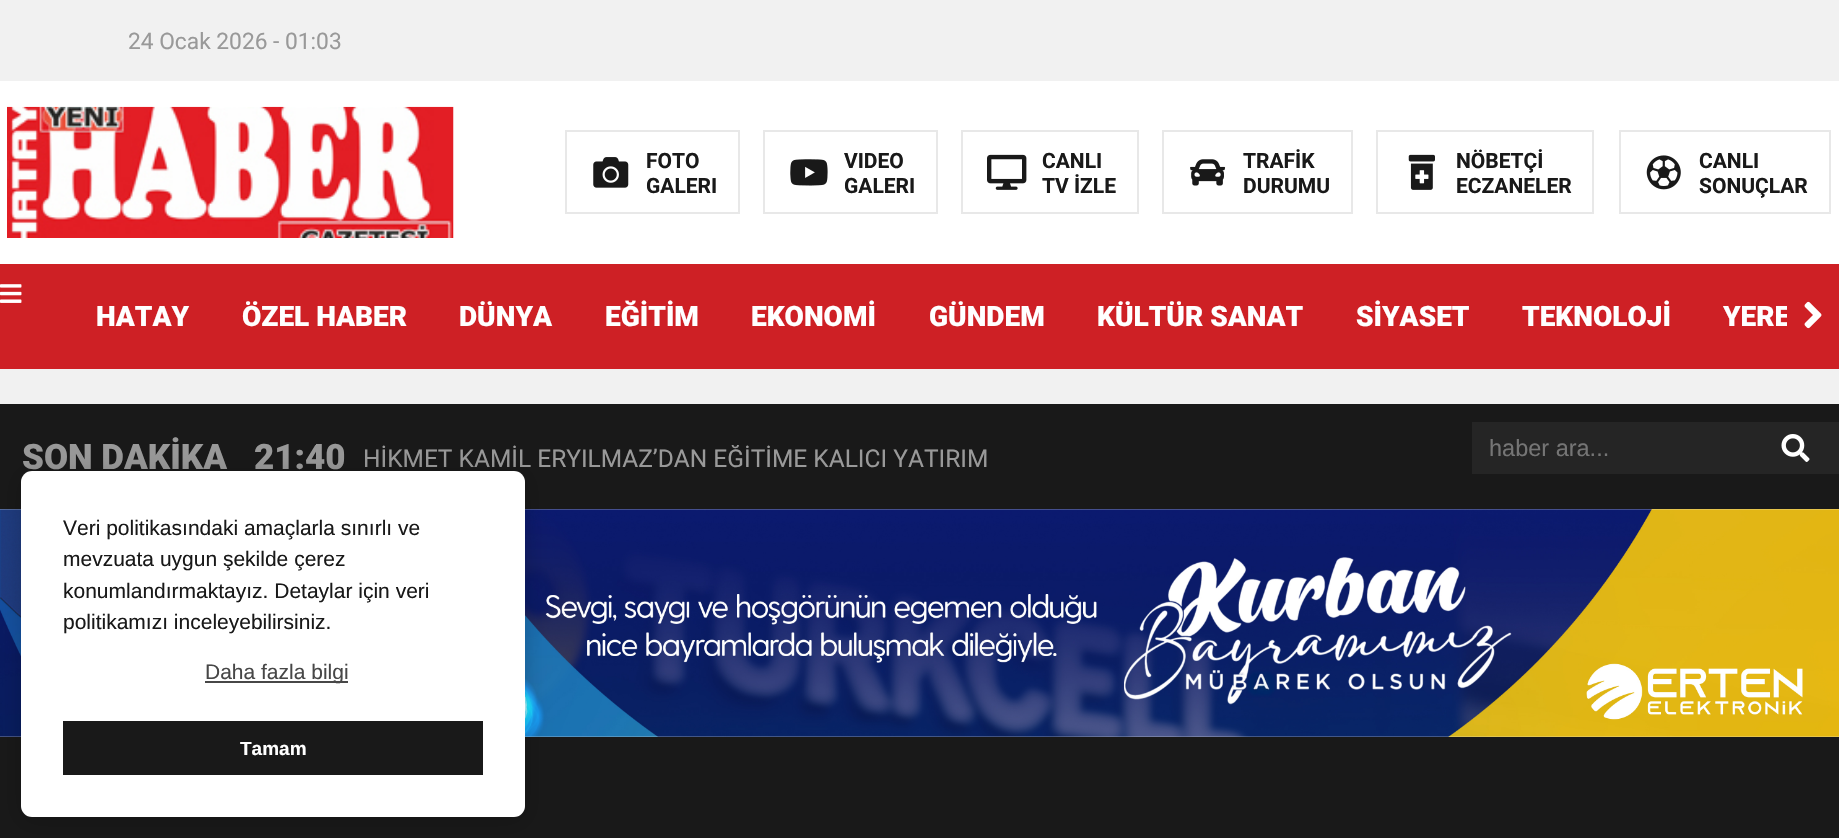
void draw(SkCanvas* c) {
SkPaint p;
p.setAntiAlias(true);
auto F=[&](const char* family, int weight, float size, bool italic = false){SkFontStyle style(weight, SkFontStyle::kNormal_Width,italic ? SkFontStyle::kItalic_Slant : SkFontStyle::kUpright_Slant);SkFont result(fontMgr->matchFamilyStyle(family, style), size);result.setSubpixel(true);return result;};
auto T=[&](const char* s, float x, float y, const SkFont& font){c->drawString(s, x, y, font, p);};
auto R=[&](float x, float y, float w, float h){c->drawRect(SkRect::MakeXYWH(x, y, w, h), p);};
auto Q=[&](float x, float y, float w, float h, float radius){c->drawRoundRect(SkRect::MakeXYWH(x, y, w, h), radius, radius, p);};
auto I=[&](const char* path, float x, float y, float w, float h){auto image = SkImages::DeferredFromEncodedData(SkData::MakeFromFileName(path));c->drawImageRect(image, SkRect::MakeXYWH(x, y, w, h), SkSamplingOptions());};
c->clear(0xfff1f1f1);
auto f1 = F("Roboto",400,22.75);
p.setColor(0xff999999);
T("24 Ocak 2026 - 01:03",128,49,f1);
p.setColor(0xffffffff);
R(0,81,1839,183);
I("1.png",7,106,447,132);
p.setStroke(true);
p.setStrokeWidth(2);
p.setColor(0xffe8e8e8);
c->drawRect(SkRect::MakeXYWH(566,131,173,82),p);
I("2.png",593,157,36,31);
auto f2 = F("Roboto",700,21);
p.setStroke(false);
p.setColor(0xff191919);
T("FOTO",646,168,f2);
T("GALERI",646,193,f2);
p.setStroke(true);
p.setColor(0xffe8e8e8);
c->drawRect(SkRect::MakeXYWH(764,131,173,82),p);
I("3.png",790,159,38,27);
p.setStroke(false);
p.setColor(0xff191919);
T("VIDEO",844,168,f2);
T("GALERI",844,193,f2);
p.setStroke(true);
p.setColor(0xffe8e8e8);
c->drawRect(SkRect::MakeXYWH(962,131,176,82),p);
I("4.png",987,154,40,36);
p.setStroke(false);
p.setColor(0xff191919);
T("CANLI",1042,168,f2);
T("TV İZLE",1042,193,f2);
p.setStroke(true);
p.setColor(0xffe8e8e8);
c->drawRect(SkRect::MakeXYWH(1163,131,189,82),p);
I("5.png",1190,159,36,27);
p.setStroke(false);
p.setColor(0xff191919);
T("TRAFİK",1243,168,f2);
T("DURUMU",1243,193,f2);
p.setStroke(true);
p.setColor(0xffe8e8e8);
c->drawRect(SkRect::MakeXYWH(1377,131,216,82),p);
I("6.png",1408,154,27,36);
p.setStroke(false);
p.setColor(0xff191919);
T("NÖBETÇİ",1456,168,f2);
T("ECZANELER",1456,193,f2);
p.setStroke(true);
p.setColor(0xffe8e8e8);
c->drawRect(SkRect::MakeXYWH(1620,131,210,82),p);
I("7.png",1646,155,35,35);
p.setStroke(false);
p.setColor(0xff191919);
T("CANLI",1699,168,f2);
T("SONUÇLAR",1699,193,f2);
p.setColor(0xffce2025);
R(0,264,1787,105);
I("8.png",0,284,22,19);
auto f3 = F("Roboto",900,28);
p.setColor(0xffffffff);
T("HATAY",96,326,f3);
T("ÖZEL HABER",242,326,f3);
T("DÜNYA",459,326,f3);
T("EĞİTİM",605,326,f3);
T("EKONOMİ",751,326,f3);
T("GÜNDEM",929,326,f3);
T("KÜLTÜR SANAT",1097,326,f3);
T("SİYASET",1356,326,f3);
T("TEKNOLOJİ",1522,326,f3);
T("YERE",1723,326,f3);
p.setColor(0xffce2025);
R(1787,264,52,105);
I("9.png",1804,301,18,28);
p.setColor(0xff191919);
R(0,404,1839,105);
auto f4 = F("Roboto",900,35);
p.setColor(0xff999999);
T("SON DAKİKA",22,469,f4);
T("21:40",254,469,f4);
auto f5 = F("Roboto",400,24.5);
T("HİKMET KAMİL ERYILMAZ’DAN EĞİTİME KALICI YATIRIM",363,467,f5);
p.setColor(0xff252525);
R(1472,422,367,52);
I("10.png",1781,434,29,28);
auto f6 = F("Liberation Sans",400,23.5);
p.setColor(0xff757575);
T("haber ara...",1489,456,f6);
I("11.png",0,509,1839,228);
p.setColor(0xff191919);
R(0,737,1839,101);
p.setColor(0x30000000);
p.setMaskFilter(SkMaskFilter::MakeBlur(kNormal_SkBlurStyle, 11.5));
c->drawRoundRect(SkRect::MakeXYWH(21,474,504,347),11,11,p);
p.setMaskFilter(nullptr);
p.setColor(0xffffffff);
Q(21,471,504,346,11);
auto f7 = F("Liberation Sans",400,21);
p.setColor(0xff191919);
T("Veri politikasındaki amaçlarla sınırlı ve",63,535,f7);
T("mevzuata uygun şekilde çerez",63,566,f7);
T("konumlandırmaktayız. Detaylar için veri",63,598,f7);
T("politikamızı inceleyebilirsiniz.",63,629,f7);
p.setColor(0xff474747);
R(205,681,143,2);
T("Daha fazla bilgi",205,679,f7);
p.setColor(0xff191919);
R(63,721,420,54);
auto f8 = F("Liberation Sans",700,19);
p.setColor(0xffffffff);
T("Tamam",240,755,f8);
}
